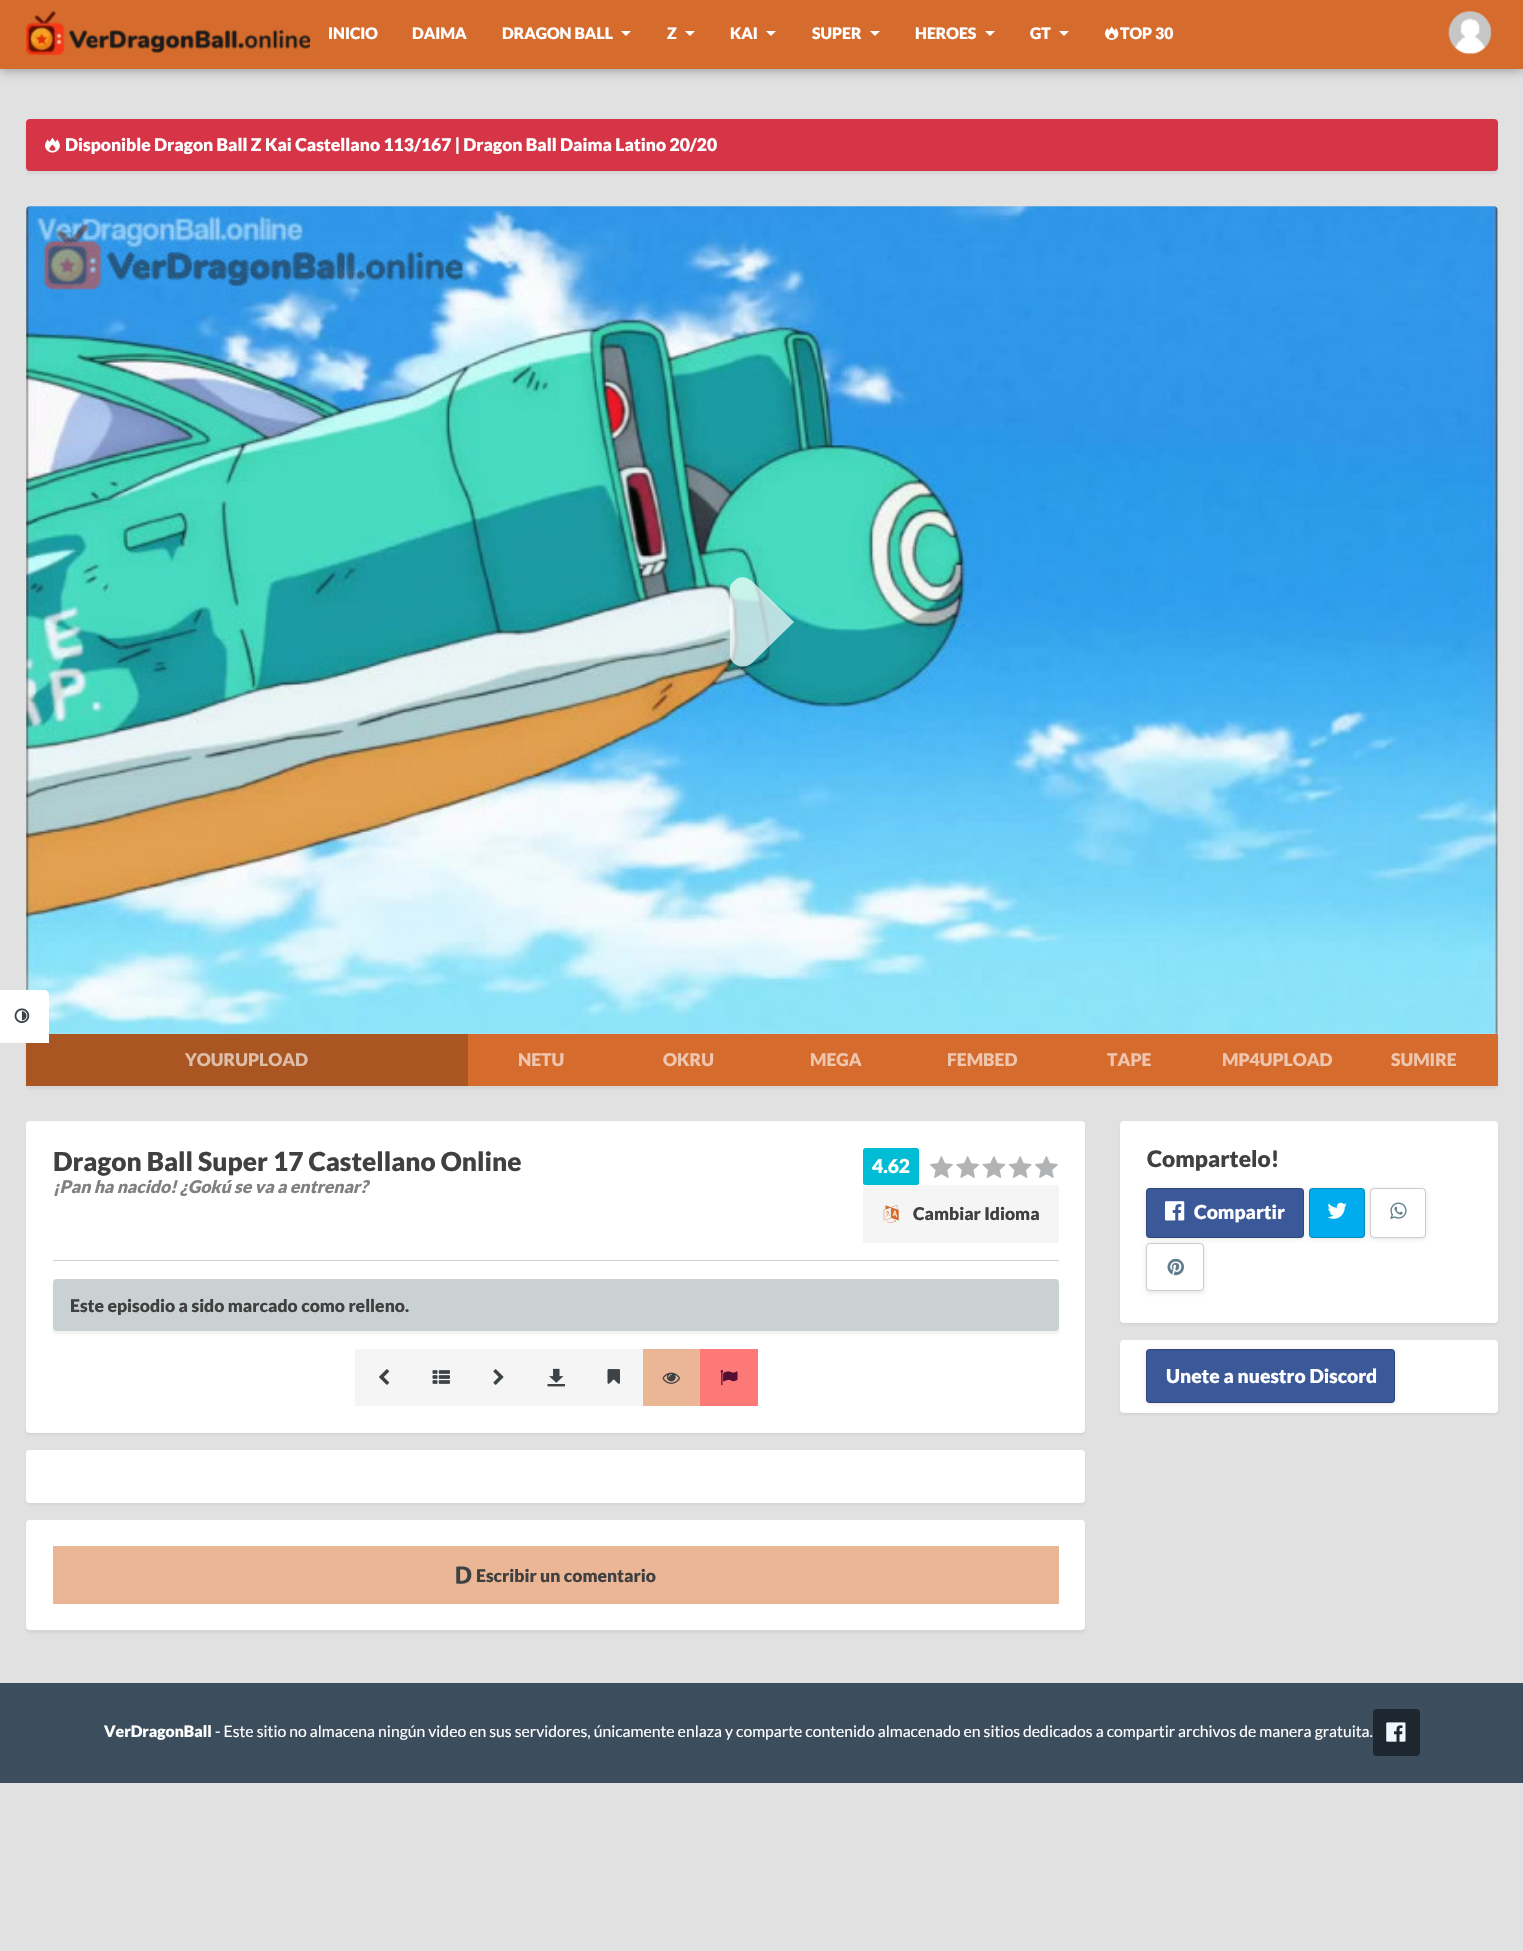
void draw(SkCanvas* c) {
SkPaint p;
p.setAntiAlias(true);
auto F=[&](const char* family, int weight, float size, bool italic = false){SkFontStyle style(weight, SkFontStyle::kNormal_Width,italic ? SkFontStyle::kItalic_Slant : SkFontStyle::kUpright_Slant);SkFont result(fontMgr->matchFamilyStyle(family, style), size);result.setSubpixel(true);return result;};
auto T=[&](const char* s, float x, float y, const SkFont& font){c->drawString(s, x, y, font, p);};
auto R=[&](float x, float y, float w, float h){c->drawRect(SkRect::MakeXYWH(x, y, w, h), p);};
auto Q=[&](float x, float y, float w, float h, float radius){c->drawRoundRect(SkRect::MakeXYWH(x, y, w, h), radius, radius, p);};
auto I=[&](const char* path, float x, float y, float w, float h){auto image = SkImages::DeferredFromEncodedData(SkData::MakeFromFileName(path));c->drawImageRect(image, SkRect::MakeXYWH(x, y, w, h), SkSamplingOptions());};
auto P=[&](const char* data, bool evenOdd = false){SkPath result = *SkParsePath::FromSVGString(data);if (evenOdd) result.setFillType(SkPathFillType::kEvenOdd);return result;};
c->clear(0xffe1e1e1);
I("6.png",26,206,1472,828);
p.setColor(0x0d000000);
p.setMaskFilter(SkMaskFilter::MakeBlur(kNormal_SkBlurStyle, 1));
c->drawRoundRect(SkRect::MakeXYWH(26,1036,1472,53),4,4,p);
p.setMaskFilter(nullptr);
p.setColor(0xffaa5623);
R(26,1034,442,52);
p.setColor(0xffffffff);
c->drawPath(P("M-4 990h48c3 0 5 2 5 5v48h-48c-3 0-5-2-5-5z"),p);
I("1.png",14,1008,16,15);
p.setColor(0x66000000);
p.setMaskFilter(SkMaskFilter::MakeBlur(kNormal_SkBlurStyle, 6));
c->drawRect(SkRect::MakeXYWH(0,0,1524,69),p);
p.setMaskFilter(nullptr);
p.setColor(0xffd56b2c);
R(0,0,1523,69);
I("2.png",26,11,284,44);
auto f1 = F("Lato",900,15.75);
p.setColor(0xffffffff);
T("INICIO",328,39,f1);
T("DAIMA",412,39,f1);
T("DRAGON BALL",502,39,f1);
c->drawPath(P("M621 31h10l-5 5z"),p);
T("Z",667,39,f1);
c->drawPath(P("M685 31h10l-5 5z"),p);
T("KAI",730,39,f1);
c->drawPath(P("M766 31h10l-5 5z"),p);
T("SUPER",812,39,f1);
c->drawPath(P("M870 31h10l-5 5z"),p);
T("HEROES",915,39,f1);
c->drawPath(P("M985 31h10l-5 5z"),p);
T("GT",1030,39,f1);
c->drawPath(P("M1059 31h10l-5 5z"),p);
I("3.png",1105,26,14,14);
T("TOP 30",1120,39,f1);
I("4.png",1448,11,44,44);
p.setColor(0x0d000000);
p.setMaskFilter(SkMaskFilter::MakeBlur(kNormal_SkBlurStyle, 1));
c->drawRoundRect(SkRect::MakeXYWH(26,121,1472,53),4,4,p);
p.setMaskFilter(nullptr);
p.setColor(0xffd63447);
Q(26,119,1472,52,4);
I("5.png",45,137,15,16);
auto f2 = F("Lato",900,17.5);
p.setColor(0xffffffff);
T("Disponible Dragon Ball Z Kai Castellano 113/167 | Dragon Ball Daima Latino 20/20",65,151,f2);
p.setColor(0xb3ffffff);
c->drawPath(P("M752 663c-7 7-20 3-22-6v-56c0-5-1-12 1-17c2-2 4-4 7-6c9-3 15 4 21 10l35 34z"),p);
p.setColor(0xffd56b2c);
R(468,1034,1030,52);
p.setColor(0xffdebda9);
T("YOURUPLOAD",185,1066,f2);
p.setColor(0xffefc5ad);
T("NETU",518,1066,f2);
T("OKRU",663,1066,f2);
T("MEGA",810,1066,f2);
T("FEMBED",947,1066,f2);
T("TAPE",1107,1066,f2);
T("MP4UPLOAD",1222,1066,f2);
T("SUMIRE",1391,1066,f2);
p.setColor(0x0d000000);
p.setMaskFilter(SkMaskFilter::MakeBlur(kNormal_SkBlurStyle, 1));
c->drawRoundRect(SkRect::MakeXYWH(26,1124,1059,311),4,4,p);
p.setMaskFilter(nullptr);
p.setColor(0xffffffff);
Q(26,1121,1059,312,4);
p.setColor(0xffc9d1d3);
R(53,1260,1006,1);
auto f3 = F("Lato",900,26.25);
p.setColor(0xff404040);
T("Dragon Ball Super 17 Castellano Online",53,1171,f3);
auto f4 = F("Lato",900,17.5,true);
p.setColor(0xff808080);
T("¡Pan ha nacido! ¿Gokú se va a entrenar?",53,1193,f4);
p.setColor(0xff00bcd4);
Q(863,1148,56,37,2.5);
auto f5 = F("Lato",900,19.25);
p.setColor(0xffffffff);
T("4.62",872,1173,f5);
I("7.png",930,1156,23,22);
I("8.png",956,1156,23,22);
I("9.png",982,1156,24,22);
I("10.png",1008,1156,24,22);
I("7.png",1035,1156,23,22);
p.setColor(0xfff5f5f5);
R(863,1185,196,58);
I("11.png",883,1205,16,18);
p.setColor(0xff404040);
T("Cambiar Idioma",913,1220,f2);
p.setColor(0x0d000000);
p.setMaskFilter(SkMaskFilter::MakeBlur(kNormal_SkBlurStyle, 1));
c->drawRoundRect(SkRect::MakeXYWH(53,1281,1006,53),4,4,p);
p.setMaskFilter(nullptr);
p.setColor(0xffc9d1d3);
Q(53,1279,1006,52,4);
p.setColor(0xff404040);
T("Este episodio a sido marcado como relleno.",70,1312,f2);
p.setColor(0xfff5f5f5);
R(355,1349,288,57);
I("12.png",379,1369,11,16);
I("13.png",607,1369,13,15);
p.setColor(0xffeab696);
R(643,1349,57,57);
I("14.png",662,1372,18,12);
p.setColor(0xfffc7978);
R(700,1349,58,57);
I("15.png",720,1370,18,16);
I("16.png",432,1370,18,14);
I("17.png",493,1369,11,16);
I("18.png",547,1368,18,19);
p.setColor(0x0d000000);
p.setMaskFilter(SkMaskFilter::MakeBlur(kNormal_SkBlurStyle, 1));
c->drawRoundRect(SkRect::MakeXYWH(26,1453,1059,52),4,4,p);
p.setMaskFilter(nullptr);
p.setColor(0xffffffff);
Q(26,1450,1059,53,4);
p.setColor(0x0d000000);
p.setMaskFilter(SkMaskFilter::MakeBlur(kNormal_SkBlurStyle, 1));
c->drawRoundRect(SkRect::MakeXYWH(26,1523,1059,110),4,4,p);
p.setMaskFilter(nullptr);
p.setColor(0xffffffff);
Q(26,1520,1059,110,4);
p.setColor(0xffeab696);
R(53,1546,1006,58);
I("19.png",456,1566,16,18);
p.setColor(0xff404040);
T("Escribir un comentario",476,1582,f2);
p.setColor(0x0d000000);
p.setMaskFilter(SkMaskFilter::MakeBlur(kNormal_SkBlurStyle, 1));
c->drawRoundRect(SkRect::MakeXYWH(1120,1124,378,201),4,4,p);
p.setMaskFilter(nullptr);
p.setColor(0xffffffff);
Q(1120,1121,378,202,4);
auto f6 = F("Lato",900,22.75);
p.setColor(0xff404040);
T("Compartelo!",1147,1167,f6);
p.setColor(0x1a000000);
p.setMaskFilter(SkMaskFilter::MakeBlur(kNormal_SkBlurStyle, 2));
c->drawRoundRect(SkRect::MakeXYWH(1146,1189,158,50),4,4,p);
p.setMaskFilter(nullptr);
p.setColor(0xff3b5998);
Q(1146,1188,158,50,4);
p.setStroke(true);
p.setStrokeWidth(1);
p.setColor(0x33000000);
c->drawRoundRect(SkRect::MakeXYWH(1146.5,1188.5,157,49),3.5,3.5,p);
I("20.png",1165,1201,20,20);
p.setStroke(false);
p.setColor(0xffffffff);
T("Compartir",1194,1219,f5);
p.setColor(0x1a000000);
p.setMaskFilter(SkMaskFilter::MakeBlur(kNormal_SkBlurStyle, 2));
c->drawRoundRect(SkRect::MakeXYWH(1309,1189,56,50),4,4,p);
p.setMaskFilter(nullptr);
p.setColor(0xff00aced);
Q(1309,1188,56,50,4);
p.setStroke(true);
p.setColor(0x33000000);
c->drawRoundRect(SkRect::MakeXYWH(1309.5,1188.5,55,49),3.5,3.5,p);
I("21.png",1327,1202,20,17);
c->save();
c->clipPath(P("M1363 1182h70v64h-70zm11 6h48c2 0 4 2 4 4v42c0 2-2 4-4 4h-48c-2 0-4-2-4-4v-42c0-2 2-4 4-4z",true),true);
p.setStroke(false);
p.setColor(0x1a000000);
p.setMaskFilter(SkMaskFilter::MakeBlur(kNormal_SkBlurStyle, 2));
c->drawRoundRect(SkRect::MakeXYWH(1370,1189,56,50),4,4,p);
p.setMaskFilter(nullptr);
c->restore();
p.setStroke(true);
p.setColor(0x33000000);
c->drawRoundRect(SkRect::MakeXYWH(1370.5,1188.5,55,49),3.5,3.5,p);
I("22.png",1390,1202,17,17);
c->save();
c->clipPath(P("M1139 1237h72v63h-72zm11 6h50c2 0 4 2 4 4v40c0 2-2 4-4 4h-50c-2 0-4-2-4-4v-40c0-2 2-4 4-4z",true),true);
p.setStroke(false);
p.setColor(0x1a000000);
p.setMaskFilter(SkMaskFilter::MakeBlur(kNormal_SkBlurStyle, 2));
c->drawRoundRect(SkRect::MakeXYWH(1146,1244,58,49),4,4,p);
p.setMaskFilter(nullptr);
c->restore();
p.setStroke(true);
p.setColor(0x33000000);
c->drawRoundRect(SkRect::MakeXYWH(1146.5,1243.5,57,47),3.5,3.5,p);
I("23.png",1167,1258,17,18);
p.setStroke(false);
p.setColor(0x0d000000);
p.setMaskFilter(SkMaskFilter::MakeBlur(kNormal_SkBlurStyle, 1));
c->drawRoundRect(SkRect::MakeXYWH(1120,1343,378,72),4,4,p);
p.setMaskFilter(nullptr);
p.setColor(0xffffffff);
Q(1120,1340,378,73,4);
p.setColor(0x1a000000);
p.setMaskFilter(SkMaskFilter::MakeBlur(kNormal_SkBlurStyle, 2));
c->drawRoundRect(SkRect::MakeXYWH(1146,1350,249,54),4,4,p);
p.setMaskFilter(nullptr);
p.setColor(0xff3b5998);
Q(1146,1349,249,54,4);
p.setStroke(true);
p.setColor(0x33000000);
c->drawRoundRect(SkRect::MakeXYWH(1146.5,1349.5,248,53),3.5,3.5,p);
p.setStroke(false);
p.setColor(0xffffffff);
T("Unete a nuestro Discord",1166,1383,f5);
p.setColor(0xff3c4d5e);
R(0,1683,1523,100);
p.setColor(0xffffffff);
T("VerDragonBall",104,1737,f1);
auto f7 = F("Lato",400,15.75);
T("- Este sitio no almacena ningún video en sus servidores, únicamente enlaza y comparte contenido almacenado en sitios dedicados a compartir archivos de manera gratuita.",215,1737,f7);
p.setColor(0xff1e272f);
Q(1373,1709,47,47,4);
I("24.png",1386,1722,20,20);
}
